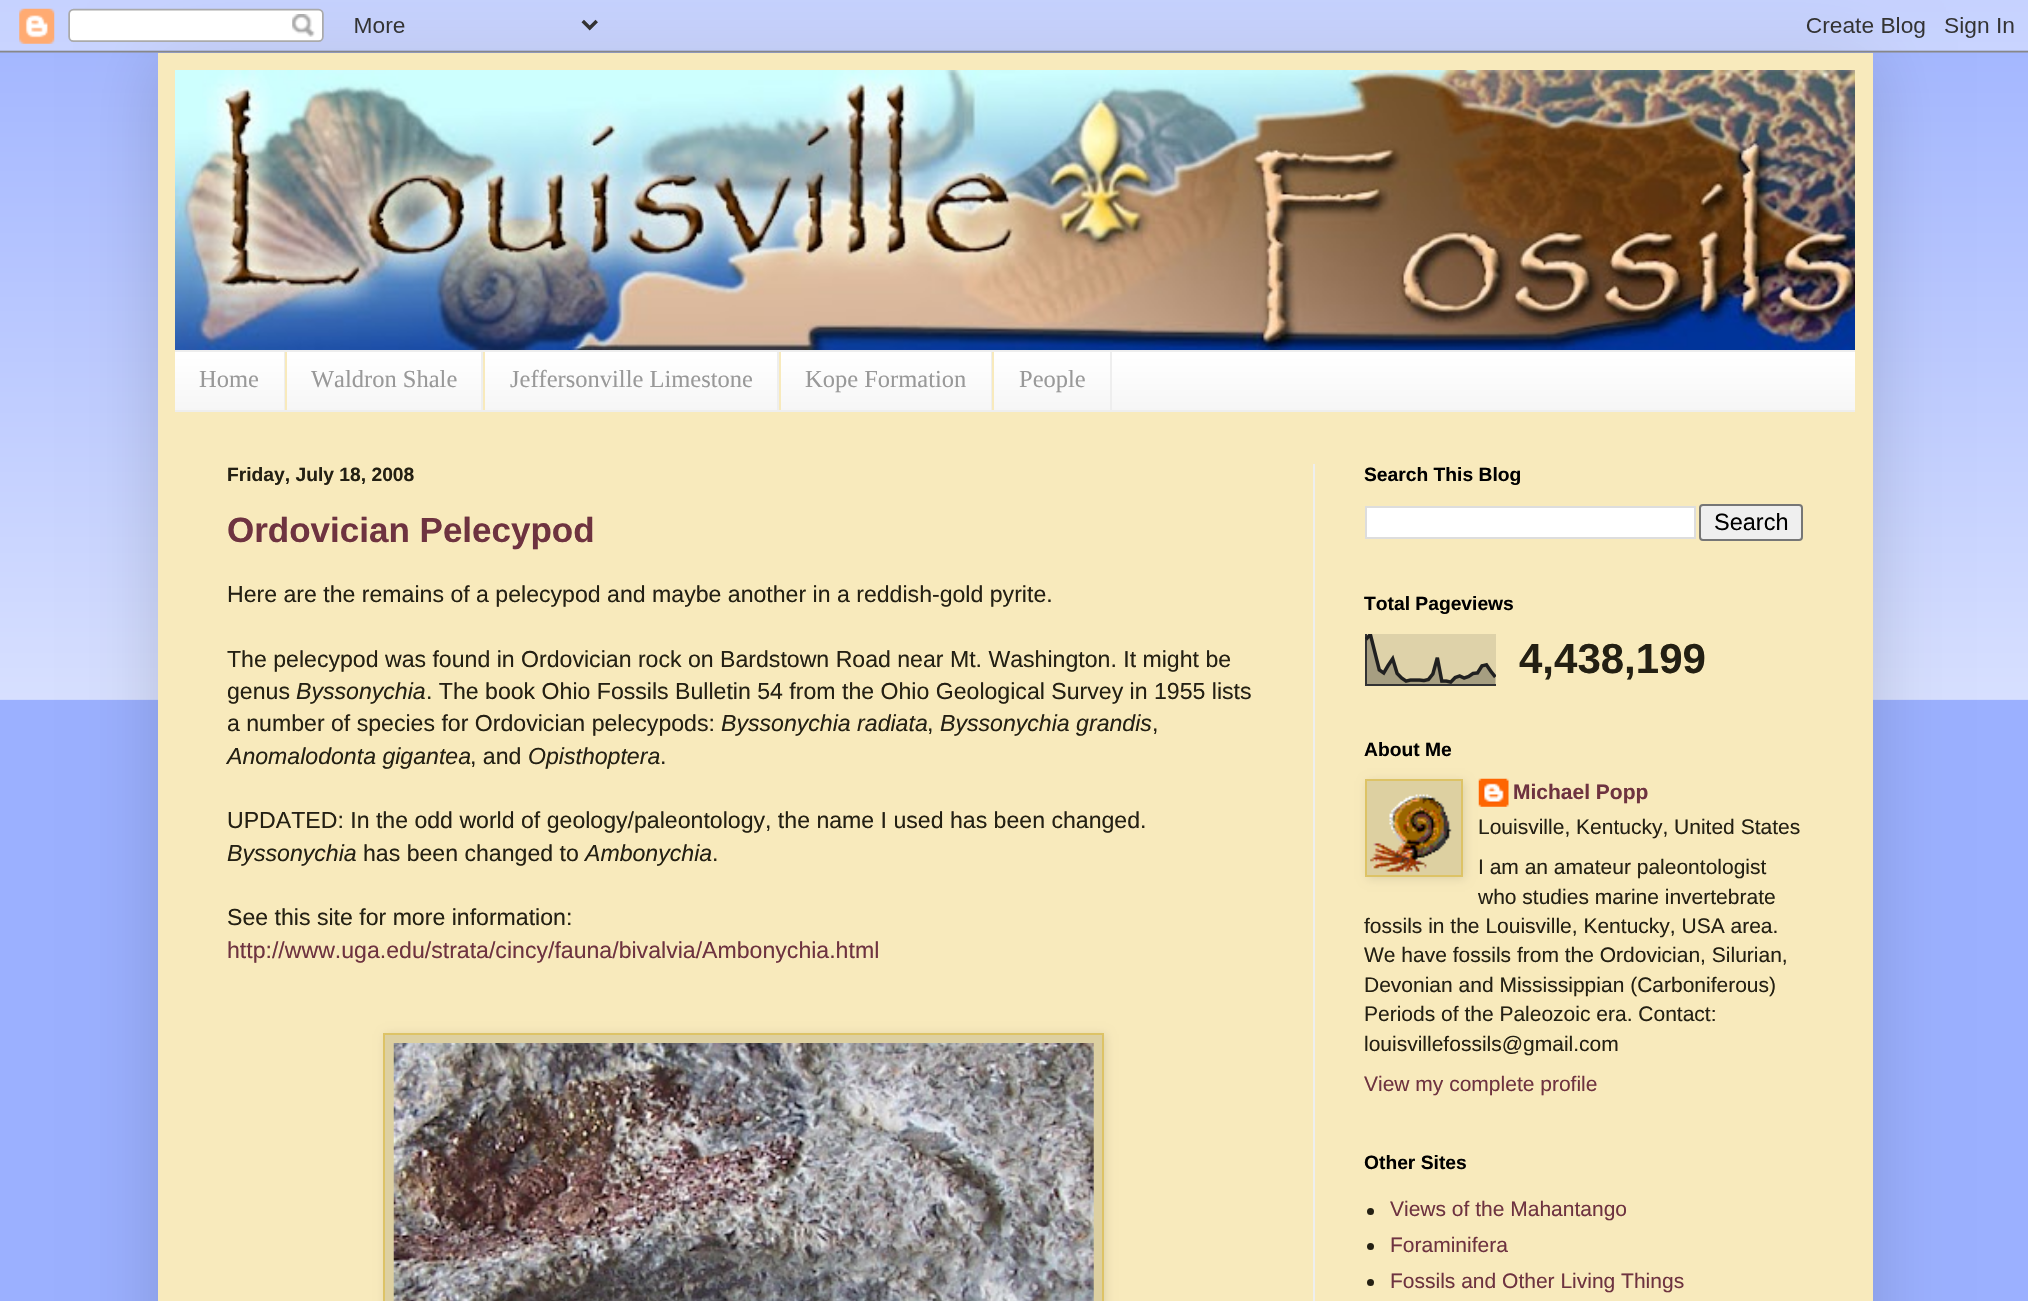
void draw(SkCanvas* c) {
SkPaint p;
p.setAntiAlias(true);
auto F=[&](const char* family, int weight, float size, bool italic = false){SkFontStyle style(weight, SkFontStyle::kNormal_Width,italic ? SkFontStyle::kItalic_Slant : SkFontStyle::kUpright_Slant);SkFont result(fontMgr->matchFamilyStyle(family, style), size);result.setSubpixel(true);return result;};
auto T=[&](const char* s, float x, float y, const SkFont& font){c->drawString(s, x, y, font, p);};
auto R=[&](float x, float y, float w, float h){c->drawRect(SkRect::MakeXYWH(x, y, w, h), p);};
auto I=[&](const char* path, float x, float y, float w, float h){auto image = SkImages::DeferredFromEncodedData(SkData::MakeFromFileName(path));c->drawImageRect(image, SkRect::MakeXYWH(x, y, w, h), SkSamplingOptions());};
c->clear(0xff9bb0ff);
I("1.png",0,0,2028,700);
p.setColor(0x26000000);
p.setMaskFilter(SkMaskFilter::MakeBlur(kNormal_SkBlurStyle, 35));
c->drawRect(SkRect::MakeXYWH(158,53,1715,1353),p);
p.setMaskFilter(nullptr);
I("2.png",0,0,2028,53);
p.setColor(0xfff8eabc);
R(158,53,1715,1248);
I("3.png",175,70,1680,280);
p.setColor(0xfff5f5f5);
R(175,352,1680,58);
I("4.png",175,352,1680,58);
p.setColor(0xffeeeeee);
R(175,350,1680,2);
R(175,410,1680,2);
R(284,352,1,58);
auto f1 = F("Liberation Serif",400,24.5);
p.setColor(0xff999999);
T("Home",199,387,f1);
p.setColor(0xffeeeeee);
R(481,352,2,58);
p.setColor(0xfff8eabc);
R(285,352,2,58);
p.setColor(0xff999999);
T("Waldron Shale",311,387,f1);
p.setColor(0xffeeeeee);
R(777,352,2,58);
p.setColor(0xfff8eabc);
R(483,352,2,58);
p.setColor(0xff999999);
T("Jeffersonville Limestone",510,387,f1);
p.setColor(0xffeeeeee);
R(991,352,1,58);
p.setColor(0xfff8eabc);
R(779,352,2,58);
p.setColor(0xff999999);
T("Kope Formation",805,387,f1);
p.setColor(0xffeeeeee);
R(1110,352,2,58);
p.setColor(0xfff8eabc);
R(992,352,2,58);
p.setColor(0xff999999);
T("People",1019,387,f1);
p.setColor(0xffeeeeee);
R(1313,464,2,837);
auto f2 = F("Liberation Sans",700,19.25);
p.setColor(0xff242013);
T("Friday, July 18, 2008",227,481,f2);
auto f3 = F("Liberation Sans",700,35);
p.setColor(0xff6e3340);
T("Ordovician Pelecypod",227,542,f3);
auto f4 = F("Liberation Sans",400,23.1);
p.setColor(0xff242013);
T("Here are the remains of a pelecypod and maybe another in a reddish-gold pyrite.",227,602,f4);
T("The pelecypod was found in Ordovician rock on Bardstown Road near Mt. Washington. It might be",227,667,f4);
T("genus",227,699,f4);
auto f5 = F("Liberation Sans",400,23.1,true);
T("Byssonychia",296,699,f5);
T(". The book Ohio Fossils Bulletin 54 from the Ohio Geological Survey in 1955 lists",426,699,f4);
T("a number of species for Ordovician pelecypods:",227,731,f4);
T("Byssonychia radiata",721,731,f5);
T(",",927,731,f4);
T("Byssonychia grandis",940,731,f5);
T(",",1152,731,f4);
T("Anomalodonta gigantea",227,764,f5);
T(", and",470,764,f4);
T("Opisthoptera",528,764,f5);
T(".",660,764,f4);
T("UPDATED: In the odd world of geology/paleontology, the name I used has been changed.",227,828,f4);
T("Byssonychia",227,861,f5);
T("has been changed to",363,861,f4);
T("Ambonychia",585,861,f5);
T(".",712,861,f4);
T("See this site for more information:",227,925,f4);
p.setColor(0xff6e3340);
T("http://www.uga.edu/strata/cincy/fauna/bivalvia/Ambonychia.html",227,958,f4);
p.setColor(0x1a000000);
p.setMaskFilter(SkMaskFilter::MakeBlur(kNormal_SkBlurStyle, 4.5));
c->drawRect(SkRect::MakeXYWH(385,1034,721,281),p);
p.setMaskFilter(nullptr);
p.setColor(0xffddd0a1);
c->drawRect(SkRect::MakeXYWH(384,1034,719,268),p);
p.setStroke(true);
p.setStrokeWidth(2);
p.setColor(0xffddc366);
c->drawRect(SkRect::MakeXYWH(384,1034,719,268),p);
I("5.png",393,1043,701,258);
p.setStroke(false);
p.setColor(0xff000000);
T("Search This Blog",1364,481,f2);
p.setColor(0xffffffff);
c->drawRect(SkRect::MakeXYWH(1366,507,329,31),p);
p.setStroke(true);
p.setColor(0xffdddddd);
c->drawRect(SkRect::MakeXYWH(1366,507,329,31),p);
p.setStroke(false);
p.setColor(0xffefefef);
c->drawRoundRect(SkRect::MakeXYWH(1700,505,102,35),3,3,p);
p.setStroke(true);
p.setColor(0xff767676);
c->drawRoundRect(SkRect::MakeXYWH(1700,505,102,35),3,3,p);
auto f6 = F("Liberation Sans",400,23.5);
p.setStroke(false);
p.setColor(0xff000000);
T("Search",1714,530,f6);
T("Total Pageviews",1364,610,f2);
I("6.png",1365,634,131,52);
auto f7 = F("Liberation Sans",700,42);
p.setColor(0xff242013);
T("4,438,199",1519,673,f7);
p.setColor(0xff000000);
T("About Me",1364,756,f2);
I("8.png",1478,778,31,29);
p.setColor(0x1a000000);
p.setMaskFilter(SkMaskFilter::MakeBlur(kNormal_SkBlurStyle, 4.5));
c->drawRect(SkRect::MakeXYWH(1367,781,98,98),p);
p.setMaskFilter(nullptr);
p.setColor(0xffddd0a1);
c->drawRect(SkRect::MakeXYWH(1366,780,96,96),p);
p.setStroke(true);
p.setColor(0xffddc366);
c->drawRect(SkRect::MakeXYWH(1366,780,96,96),p);
I("7.png",1370,794,82,78);
auto f8 = F("Liberation Sans",700,21);
p.setStroke(false);
p.setColor(0xff6e3340);
T("Michael Popp",1513,799,f8);
auto f9 = F("Liberation Sans",400,21);
p.setColor(0xff242013);
T("Louisville, Kentucky, United States",1478,834,f9);
T("I am an amateur paleontologist",1478,874,f9);
T("who studies marine invertebrate",1478,904,f9);
T("fossils in the Louisville, Kentucky, USA area.",1364,933,f9);
T("We have fossils from the Ordovician, Silurian,",1364,962,f9);
T("Devonian and Mississippian (Carboniferous)",1364,992,f9);
T("Periods of the Paleozoic era. Contact:",1364,1021,f9);
T("louisvillefossils@gmail.com",1364,1051,f9);
p.setColor(0xff6e3340);
T("View my complete profile",1364,1091,f9);
p.setColor(0xff000000);
T("Other Sites",1364,1169,f2);
p.setColor(0xff242013);
c->drawCircle(1370.5,1211.5,3.5,p);
p.setColor(0xff6e3340);
T("Views of the Mahantango",1390,1216,f9);
p.setColor(0xff242013);
c->drawCircle(1370.5,1246.5,3.5,p);
p.setColor(0xff6e3340);
T("Foraminifera",1390,1252,f9);
p.setColor(0xff242013);
c->drawCircle(1370.5,1282.5,3.5,p);
p.setColor(0xff6e3340);
T("Fossils and Other Living Things",1390,1288,f9);
}
